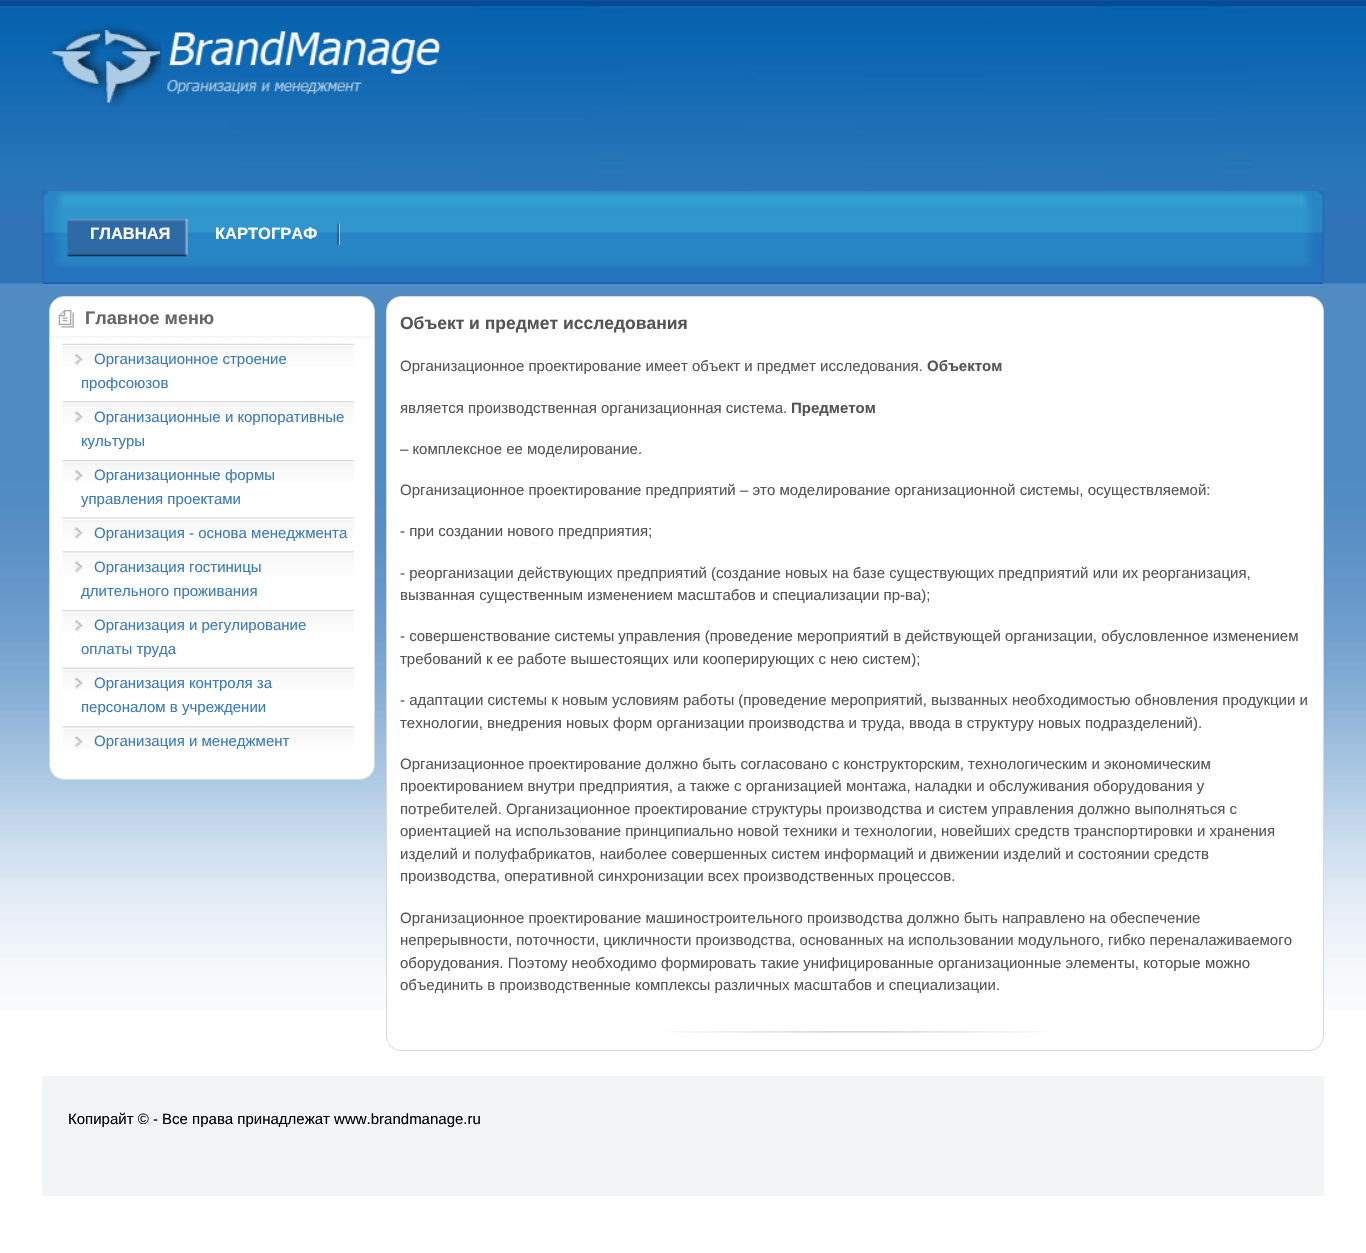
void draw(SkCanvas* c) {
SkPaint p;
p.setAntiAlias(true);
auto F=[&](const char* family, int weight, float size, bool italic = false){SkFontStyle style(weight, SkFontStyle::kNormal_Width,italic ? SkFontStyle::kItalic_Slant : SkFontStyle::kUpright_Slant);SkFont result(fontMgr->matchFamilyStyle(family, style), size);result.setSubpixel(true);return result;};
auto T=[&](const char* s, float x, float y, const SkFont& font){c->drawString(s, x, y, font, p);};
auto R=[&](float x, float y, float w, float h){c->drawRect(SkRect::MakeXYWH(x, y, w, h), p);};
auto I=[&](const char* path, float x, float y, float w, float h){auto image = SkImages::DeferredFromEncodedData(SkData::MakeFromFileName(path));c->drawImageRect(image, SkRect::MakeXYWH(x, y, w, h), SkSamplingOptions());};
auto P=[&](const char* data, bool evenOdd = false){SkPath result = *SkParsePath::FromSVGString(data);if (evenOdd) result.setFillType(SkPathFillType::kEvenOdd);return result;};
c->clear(0xffffffff);
I("1.png",0,0,1366,1010);
I("2.png",52,24,389,85);
I("3.png",42,191,1282,93);
I("4.png",67,218,121,39);
auto f1 = F("Liberation Sans",700,16.5);
p.setColor(0xffffffff);
T("ГЛАВНАЯ",90,239,f1);
I("5.png",337,223,3,23);
T("КАРТОГРАФ",215,239,f1);
c->drawRoundRect(SkRect::MakeXYWH(49.5,296.5,325,483),14.5,14.5,p);
p.setStroke(true);
p.setStrokeWidth(1);
p.setColor(0xffd7d7d7);
c->drawRoundRect(SkRect::MakeXYWH(49.5,296.5,325,483),14.5,14.5,p);
I("6.png",58,309,16,19);
p.setStrokeWidth(1.2);
p.setColor(0xffdddddd);
p.setPathEffect(SkDashPathEffect::Make({{1.25f,1.25f}}, 0));
c->drawPath(P("M51 337h321.5"),p);
p.setPathEffect(nullptr);
auto f2 = F("Liberation Sans",700,18);
p.setStroke(false);
p.setColor(0xff666666);
T("Главное меню",85,324,f2);
I("7.png",62,343,292,27);
auto f3 = F("Liberation Sans",400,15);
p.setColor(0xff3b7bb9);
T("Организационное строение",94,364,f3);
T("профсоюзов",81,388,f3);
I("8.png",62,401,292,27);
T("Организационные и корпоративные",94,422,f3);
T("культуры",81,446,f3);
I("9.png",62,460,292,27);
T("Организационные формы",94,480,f3);
T("управления проектами",81,504,f3);
I("10.png",62,517,292,27);
T("Организация - основа менеджмента",94,538,f3);
I("8.png",62,551,292,27);
T("Организация гостиницы",94,572,f3);
T("длительного проживания",81,596,f3);
I("9.png",62,610,292,27);
T("Организация и регулирование",94,630,f3);
T("оплаты труда",81,654,f3);
I("11.png",62,667,292,27);
T("Организация контроля за",94,688,f3);
T("персоналом в учреждении",81,712,f3);
I("12.png",62,726,292,27);
T("Организация и менеджмент",94,746,f3);
p.setColor(0xffffffff);
c->drawRoundRect(SkRect::MakeXYWH(386.5,296.5,937,754),14.5,14.5,p);
p.setStroke(true);
p.setStrokeWidth(1);
p.setColor(0xffd7d7d7);
c->drawRoundRect(SkRect::MakeXYWH(386.5,296.5,937,754),14.5,14.5,p);
auto f4 = F("Liberation Sans",700,17.5);
p.setStroke(false);
p.setColor(0xff555555);
T("Объект и предмет исследования",400,329,f4);
T("Организационное проектирование имеет объект и предмет исследования.",400,371,f3);
auto f5 = F("Liberation Sans",700,15);
T("Объектом",927,371,f5);
T("является производственная организационная система.",400,413,f3);
T("Предметом",791,413,f5);
T("– комплексное ее моделирование.",400,454,f3);
T("Организационное проектирование предприятий – это моделирование организационной системы, осуществляемой:",400,495,f3);
T("- при создании нового предприятия;",400,536,f3);
T("- реорганизации действующих предприятий (создание новых на базе существующих предприятий или их реорганизация,",400,578,f3);
T("вызванная существенным изменением масштабов и специализации пр-ва);",400,600,f3);
T("- совершенствование системы управления (проведение мероприятий в действующей организации, обусловленное изменением",400,641,f3);
T("требований к ее работе вышестоящих или кооперирующих с нею систем);",400,664,f3);
T("- адаптации системы к новым условиям работы (проведение мероприятий, вызванных необходимостью обновления продукции и",400,705,f3);
T("технологии, внедрения новых форм организации производства и труда, ввода в структуру новых подразделений).",400,728,f3);
T("Организационное проектирование должно быть согласовано с конструкторским, технологическим и экономическим",400,769,f3);
T("проектированием внутри предприятия, а также с организацией монтажа, наладки и обслуживания оборудования у",400,791,f3);
T("потребителей. Организационное проектирование структуры производства и систем управления должно выполняться с",400,814,f3);
T("ориентацией на использование принципиально новой техники и технологии, новейших средств транспортировки и хранения",400,836,f3);
T("изделий и полуфабрикатов, наиболее совершенных систем информаций и движении изделий и состоянии средств",400,859,f3);
T("производства, оперативной синхронизации всех производственных процессов.",400,881,f3);
T("Организационное проектирование машиностроительного производства должно быть направлено на обеспечение",400,923,f3);
T("непрерывности, поточности, цикличности производства, основанных на использовании модульного, гибко переналаживаемого",400,945,f3);
T("оборудования. Поэтому необходимо формировать такие унифицированные организационные элементы, которые можно",400,968,f3);
T("объединить в производственные комплексы различных масштабов и специализации.",400,990,f3);
I("13.png",658,1031,397,2);
p.setColor(0xfff3f4f5);
R(42,1076,1282,120);
p.setColor(0xff000000);
T("Копирайт © - Все права принадлежат www.brandmanage.ru",68,1124,f3);
}
